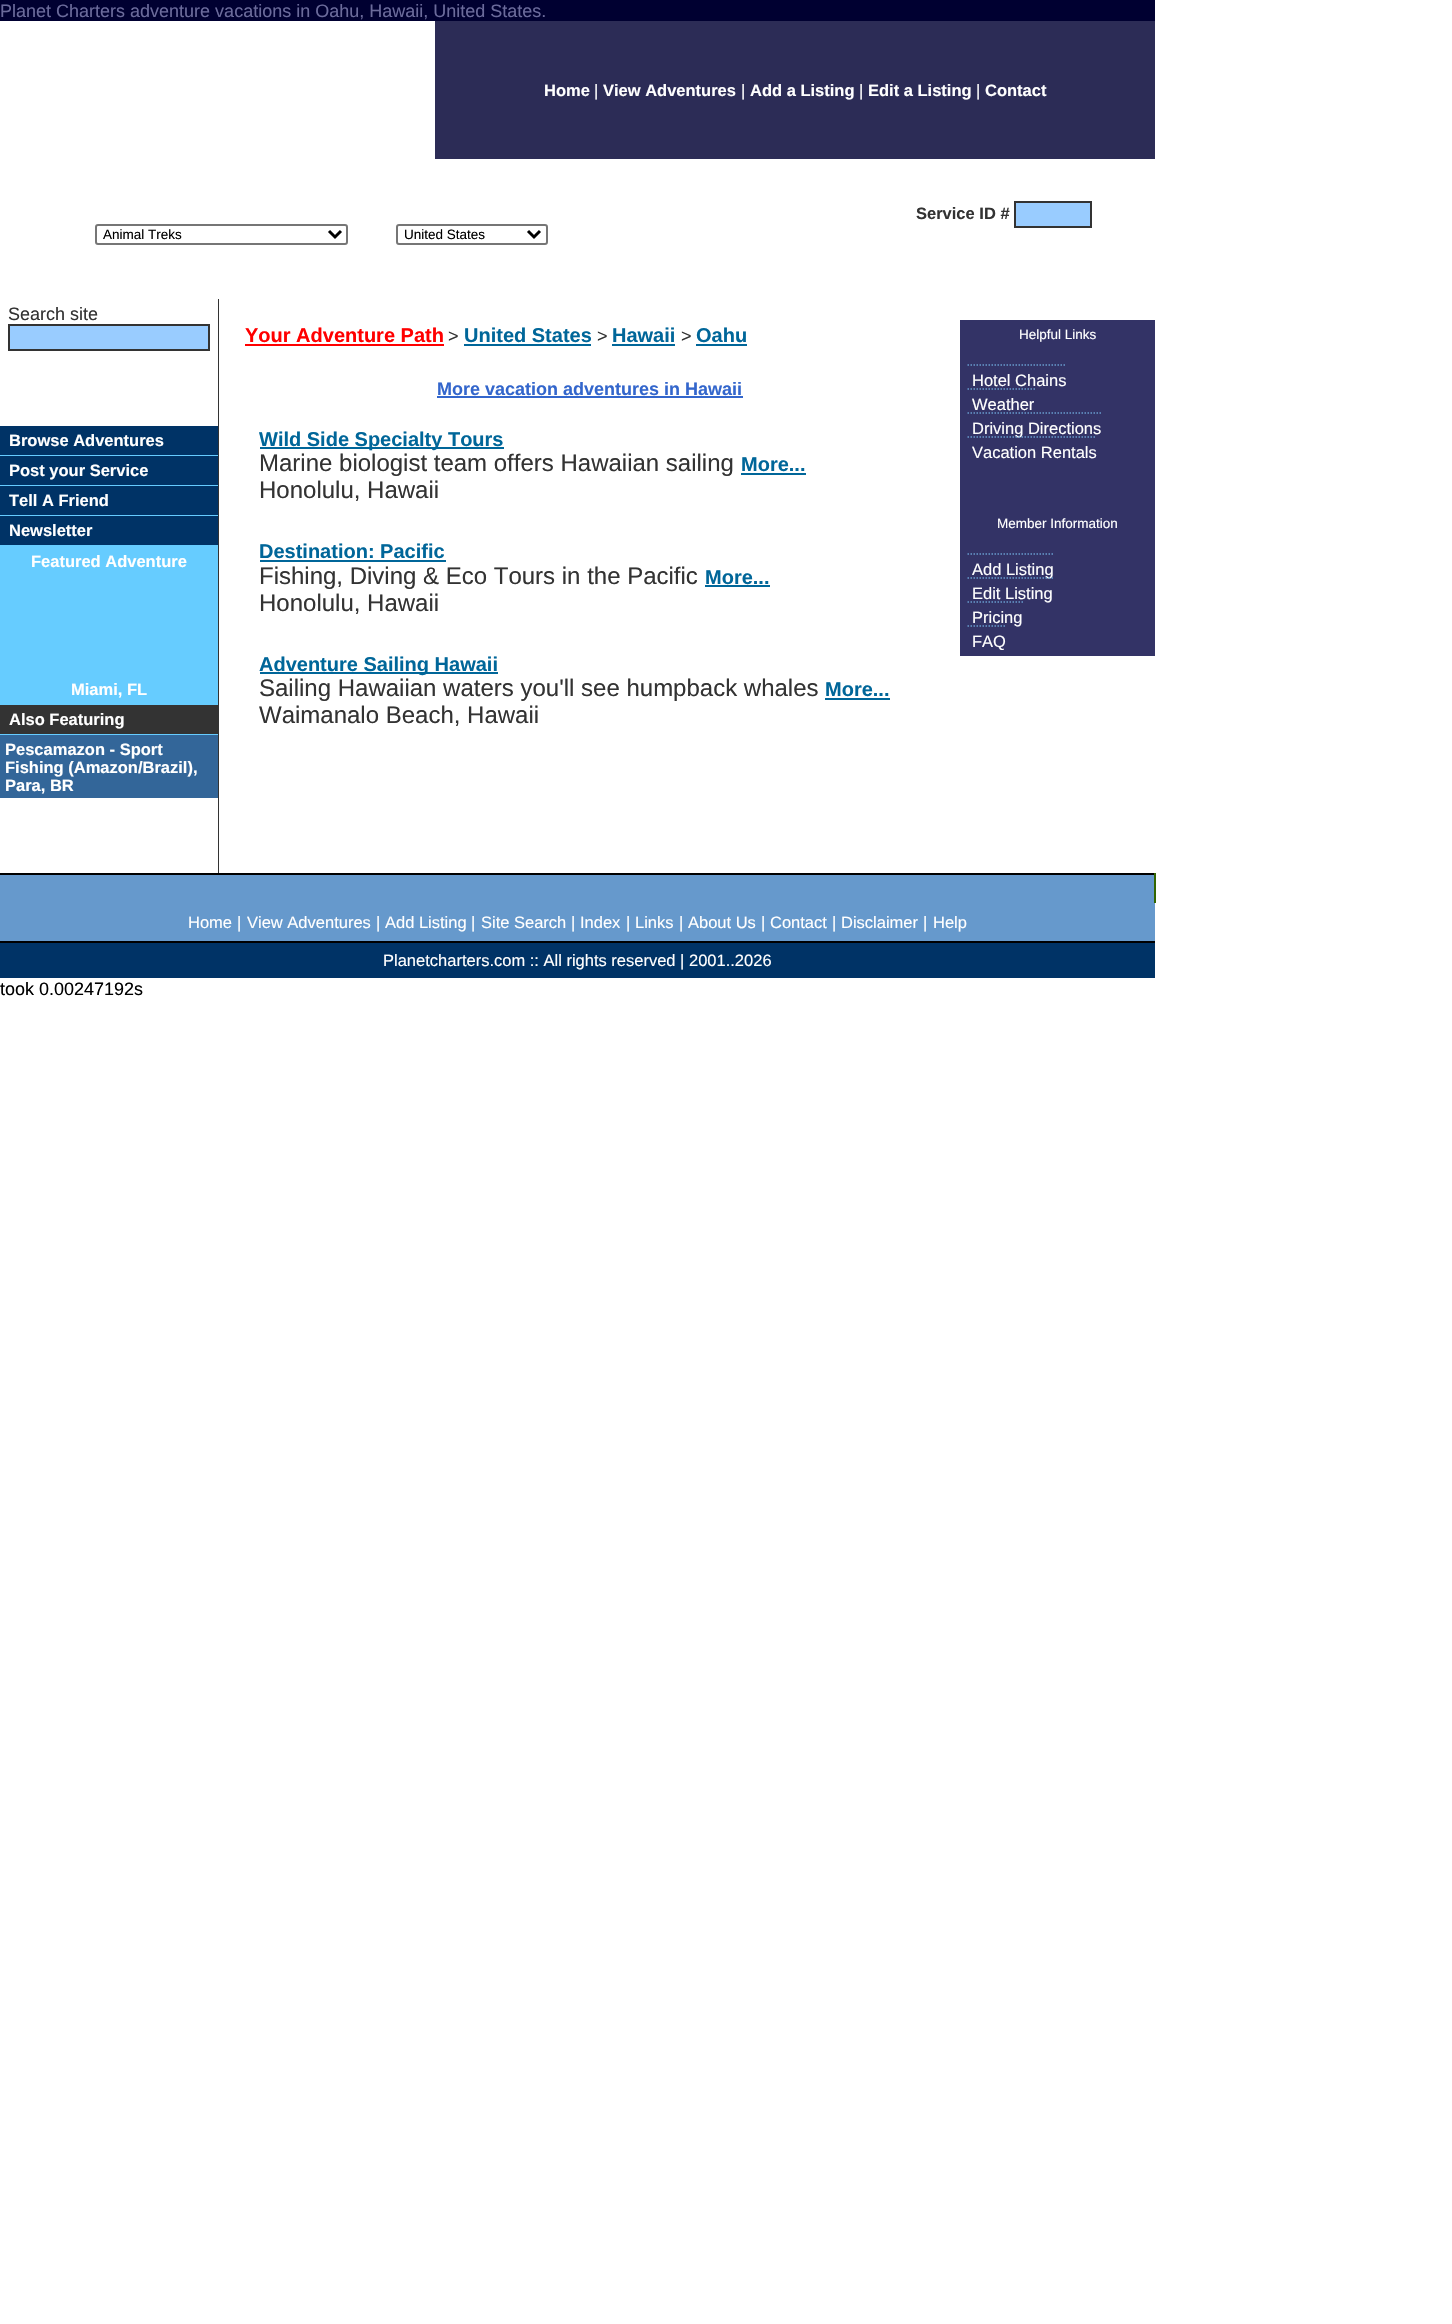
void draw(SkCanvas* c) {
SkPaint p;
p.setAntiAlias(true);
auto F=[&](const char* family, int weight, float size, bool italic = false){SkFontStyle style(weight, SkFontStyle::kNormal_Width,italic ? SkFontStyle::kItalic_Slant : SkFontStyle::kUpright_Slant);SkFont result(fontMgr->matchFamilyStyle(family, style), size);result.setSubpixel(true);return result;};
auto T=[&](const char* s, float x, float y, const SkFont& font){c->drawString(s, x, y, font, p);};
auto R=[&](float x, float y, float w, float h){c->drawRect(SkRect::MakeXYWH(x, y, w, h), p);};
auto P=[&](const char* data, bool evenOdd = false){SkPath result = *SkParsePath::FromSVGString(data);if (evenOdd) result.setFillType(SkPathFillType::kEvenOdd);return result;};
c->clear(0xffffffff);
p.setColor(0xff000031);
R(0,0,1155,21);
auto f1 = F("Liberation Sans",400,18);
p.setColor(0xff6b6b9b);
T("Planet Charters adventure vacations in Oahu, Hawaii, United States.",0,17,f1);
p.setColor(0xff2c2c56);
R(435,21,720,138);
auto f2 = F("Liberation Sans",700,16.5);
p.setColor(0xffffffff);
T("Home",544,96,f2);
auto f3 = F("Liberation Sans",400,16.5);
T("|",594,96,f3);
T("View Adventures",603,96,f2);
T("|",741,96,f3);
T("Add a Listing",750,96,f2);
T("|",859,96,f3);
T("Edit a Listing",868,96,f2);
T("|",976,96,f3);
T("Contact",985,96,f2);
p.setColor(0xff333333);
T("Service ID #",916,219,f2);
p.setColor(0xff99ccff);
c->drawRect(SkRect::MakeXYWH(1015,202,76,25),p);
p.setStroke(true);
p.setStrokeWidth(2);
p.setColor(0xff333333);
c->drawRect(SkRect::MakeXYWH(1015,202,76,25),p);
p.setColor(0xff767676);
c->drawRoundRect(SkRect::MakeXYWH(96,225,251,19),2,2,p);
p.setStrokeWidth(3);
p.setColor(0xff000000);
c->drawPath(P("M329 231l6 6l6-6"),p);
auto f4 = F("Liberation Sans",400,13.5);
p.setStroke(false);
T("Animal Treks",103,239,f4);
p.setStroke(true);
p.setStrokeWidth(2);
p.setColor(0xff767676);
c->drawRoundRect(SkRect::MakeXYWH(397,225,150,19),2,2,p);
p.setStrokeWidth(3);
p.setColor(0xff000000);
c->drawPath(P("M528 231l6 6l6-6"),p);
p.setStroke(false);
T("United States",404,239,f4);
p.setColor(0xff333333);
R(218,299,1,574);
T("Search site",8,320,f1);
p.setColor(0xff99ccff);
c->drawRect(SkRect::MakeXYWH(9,325,200,25),p);
p.setStroke(true);
p.setStrokeWidth(2);
p.setColor(0xff333333);
c->drawRect(SkRect::MakeXYWH(9,325,200,25),p);
p.setStroke(false);
p.setColor(0xff003366);
R(0,426,218,29);
p.setColor(0xffffffff);
T("Browse Adventures",9,446,f2);
p.setColor(0xff66ccff);
R(0,455,218,1);
p.setColor(0xff003366);
R(0,456,218,29);
p.setColor(0xffffffff);
T("Post your Service",9,476,f2);
p.setColor(0xff66ccff);
R(0,485,218,1);
p.setColor(0xff003366);
R(0,486,218,29);
p.setColor(0xffffffff);
T("Tell A Friend",9,506,f2);
p.setColor(0xff66ccff);
R(0,515,218,1);
p.setColor(0xff003366);
R(0,516,218,29);
p.setColor(0xffffffff);
T("Newsletter",9,536,f2);
p.setColor(0xff66ccff);
R(0,545,218,160);
p.setColor(0xffffffff);
T("Featured Adventure",31,567,f2);
T("Miami, FL",71,695,f2);
p.setColor(0xff333333);
R(0,705,218,29);
p.setColor(0xffffffff);
T("Also Featuring",9,725,f2);
p.setColor(0xff66ccff);
R(0,734,218,1);
p.setColor(0xff336699);
R(0,735,218,5);
R(0,740,218,58);
p.setColor(0xffffffff);
T("Pescamazon - Sport",5,755,f2);
T("Fishing (Amazon/Brazil),",5,773,f2);
T("Para, BR",5,791,f2);
auto f5 = F("Liberation Sans",700,20);
p.setColor(0xffff0000);
T("Your Adventure Path",245,342,f5);
R(245,344,199,2);
p.setColor(0xff333333);
T(">",448,342,f1);
p.setColor(0xff006699);
T("United States",464,342,f5);
R(464,344,127,2);
p.setColor(0xff333333);
T(">",597,342,f1);
p.setColor(0xff006699);
T("Hawaii",612,342,f5);
R(612,344,63,2);
p.setColor(0xff333333);
T(">",681,342,f1);
p.setColor(0xff006699);
T("Oahu",696,342,f5);
R(696,344,51,2);
auto f6 = F("Liberation Sans",700,18);
p.setColor(0xff3366cc);
T("More vacation adventures in Hawaii",437,395,f6);
R(437,396,306,2);
p.setColor(0xff006699);
R(260,447,244,2);
T("Wild Side Specialty Tours",259,446,f5);
auto f7 = F("Liberation Sans",400,24);
p.setColor(0xff333333);
T("Marine biologist team offers Hawaiian sailing",259,471,f7);
p.setColor(0xff006699);
T("More...",741,471,f5);
R(741,473,65,2);
p.setColor(0xff333333);
T("Honolulu, Hawaii",259,498,f7);
p.setColor(0xff006699);
T("Destination: Pacific",259,558,f5);
R(260,560,186,2);
p.setColor(0xff333333);
T("Fishing, Diving & Eco Tours in the Pacific",259,584,f7);
p.setColor(0xff006699);
T("More...",705,584,f5);
R(705,585,65,2);
p.setColor(0xff333333);
T("Honolulu, Hawaii",259,611,f7);
p.setColor(0xff006699);
R(260,672,238,2);
T("Adventure Sailing Hawaii",259,671,f5);
p.setColor(0xff333333);
T("Sailing Hawaiian waters you'll see humpback whales",259,696,f7);
p.setColor(0xff006699);
T("More...",825,696,f5);
R(825,698,65,2);
p.setColor(0xff333333);
T("Waimanalo Beach, Hawaii",259,723,f7);
p.setColor(0xff333366);
R(960,320,195,336);
p.setColor(0xffffffff);
T("Helpful Links",1019,339,f4);
T("Hotel Chains",972,386,f3);
p.setStroke(true);
p.setStrokeWidth(1.5);
p.setColor(0xff6699cc);
p.setPathEffect(SkDashPathEffect::Make({{1.5f,1.5f}}, 0));
c->drawPath(P("M967.5 365h99"),p);
p.setPathEffect(nullptr);
p.setStroke(false);
p.setColor(0xffffffff);
T("Weather",972,410,f3);
p.setStroke(true);
p.setColor(0xff6699cc);
p.setPathEffect(SkDashPathEffect::Make({{1.5f,1.5f}}, 0));
c->drawPath(P("M967.5 389h67.5"),p);
p.setPathEffect(nullptr);
p.setStroke(false);
p.setColor(0xffffffff);
T("Driving Directions",972,434,f3);
p.setStroke(true);
p.setColor(0xff6699cc);
p.setPathEffect(SkDashPathEffect::Make({{1.5f,1.5f}}, 0));
c->drawPath(P("M967.5 413h133.5"),p);
p.setPathEffect(nullptr);
p.setStroke(false);
p.setColor(0xffffffff);
T("Vacation Rentals",972,458,f3);
p.setStroke(true);
p.setColor(0xff6699cc);
p.setPathEffect(SkDashPathEffect::Make({{1.5f,1.5f}}, 0));
c->drawPath(P("M967.5 437h129"),p);
p.setPathEffect(nullptr);
p.setStroke(false);
p.setColor(0xffffffff);
T("Member Information",997,528,f4);
T("Add Listing",972,575,f3);
p.setStroke(true);
p.setColor(0xff6699cc);
p.setPathEffect(SkDashPathEffect::Make({{1.5f,1.5f}}, 0));
c->drawPath(P("M967.5 554h85.5"),p);
p.setPathEffect(nullptr);
p.setStroke(false);
p.setColor(0xffffffff);
T("Edit Listing",972,599,f3);
p.setStroke(true);
p.setColor(0xff6699cc);
p.setPathEffect(SkDashPathEffect::Make({{1.5f,1.5f}}, 0));
c->drawPath(P("M967.5 578h85.5"),p);
p.setPathEffect(nullptr);
p.setStroke(false);
p.setColor(0xffffffff);
T("Pricing",972,623,f3);
p.setStroke(true);
p.setColor(0xff6699cc);
p.setPathEffect(SkDashPathEffect::Make({{1.5f,1.5f}}, 0));
c->drawPath(P("M967.5 602h55.5"),p);
p.setPathEffect(nullptr);
p.setStroke(false);
p.setColor(0xffffffff);
T("FAQ",972,647,f3);
p.setStroke(true);
p.setColor(0xff6699cc);
p.setPathEffect(SkDashPathEffect::Make({{1.5f,1.5f}}, 0));
c->drawPath(P("M967.5 626h39"),p);
p.setPathEffect(nullptr);
p.setStroke(false);
R(0,875,1154,28);
p.setColor(0xff000000);
R(0,873,1155,2);
p.setColor(0xff336600);
R(1154,873,2,30);
p.setColor(0xff6699cc);
R(0,903,1155,38);
p.setColor(0xffffffff);
T("Home",188,928,f3);
T("|",237,928,f3);
T("View Adventures",247,928,f3);
T("|",376,928,f3);
T("Add Listing",385,928,f3);
T("|",471,928,f3);
T("Site Search",481,928,f3);
T("|",571,928,f3);
T("Index",580,928,f3);
T("|",626,928,f3);
T("Links",635,928,f3);
T("|",679,928,f3);
T("About Us",688,928,f3);
T("|",761,928,f3);
T("Contact",770,928,f3);
T("|",832,928,f3);
T("Disclaimer",841,928,f3);
T("|",923,928,f3);
T("Help",933,928,f3);
p.setColor(0xff003366);
R(0,943,1155,35);
p.setColor(0xff000000);
R(0,941,1155,2);
p.setColor(0xffffffff);
T("Planetcharters.com :: All rights reserved | 2001..2026",383,966,f3);
p.setColor(0xff000000);
T("took 0.00247192s",0,995,f1);
}
